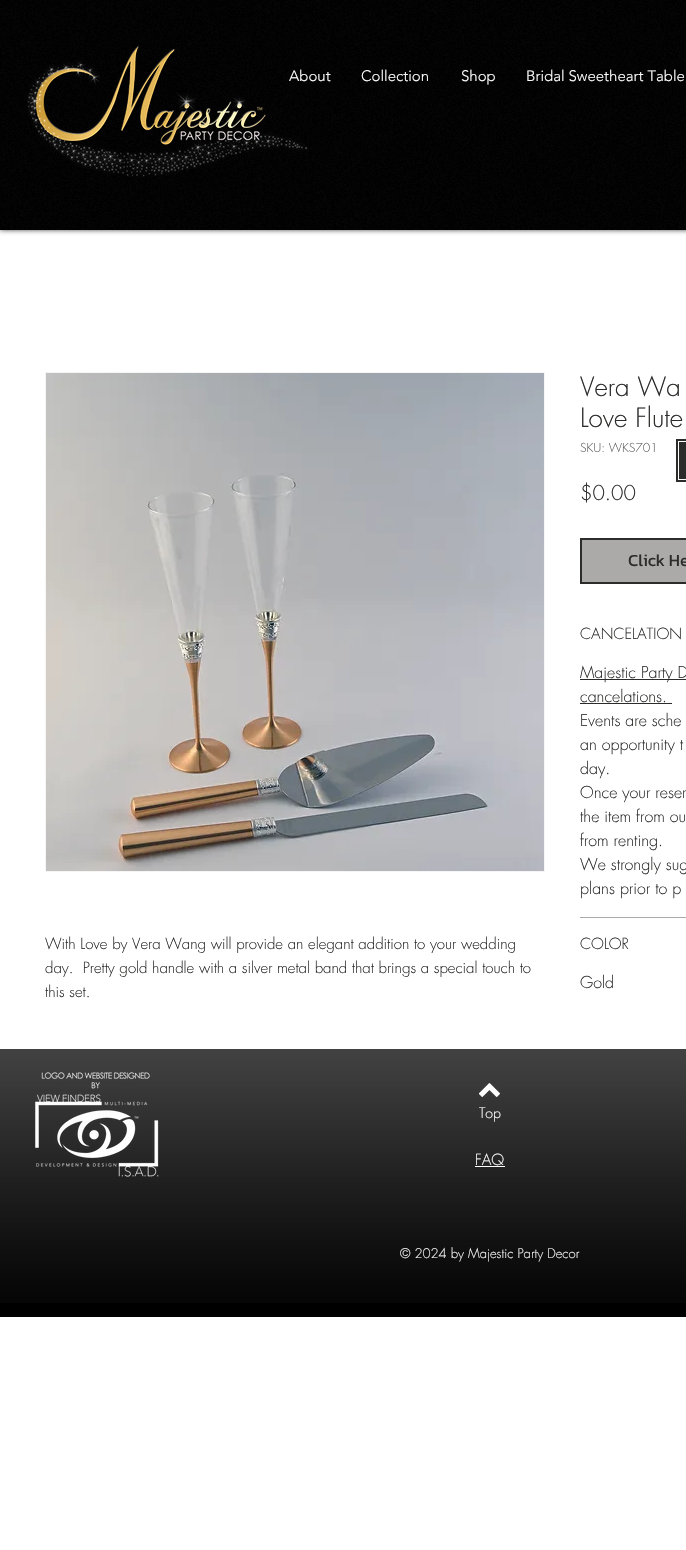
void draw(SkCanvas* c) {
SkPaint p;
p.setAntiAlias(true);
auto F=[&](const char* family, int weight, float size, bool italic = false){SkFontStyle style(weight, SkFontStyle::kNormal_Width,italic ? SkFontStyle::kItalic_Slant : SkFontStyle::kUpright_Slant);SkFont result(fontMgr->matchFamilyStyle(family, style), size);result.setSubpixel(true);return result;};
auto T=[&](const char* s, float x, float y, const SkFont& font){c->drawString(s, x, y, font, p);};
auto R=[&](float x, float y, float w, float h){c->drawRect(SkRect::MakeXYWH(x, y, w, h), p);};
auto I=[&](const char* path, float x, float y, float w, float h){auto image = SkImages::DeferredFromEncodedData(SkData::MakeFromFileName(path));c->drawImageRect(image, SkRect::MakeXYWH(x, y, w, h), SkSamplingOptions());};
c->clear(0xffffffff);
p.setColor(0xb3000000);
p.setMaskFilter(SkMaskFilter::MakeBlur(kNormal_SkBlurStyle, 2.5));
c->drawRect(SkRect::MakeXYWH(0,0,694,230),p);
p.setMaskFilter(nullptr);
p.setColor(0xff000000);
R(0,0,686,230);
I("1.png",0,0,686,230);
I("2.png",27,46,281,131);
auto f1 = F("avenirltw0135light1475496",300,15);
p.setColor(0xffffffff);
T("About",289,81,f1);
T("Collection",361,81,f1);
T("Shop",461,81,f1);
T("Bridal Sweetheart Table",526,81,f1);
p.setStroke(true);
p.setStrokeWidth(1);
p.setColor(0xfff6f5f5);
c->drawRect(SkRect::MakeXYWH(45.5,372.5,499,499),p);
I("3.png",46,373,498,498);
auto f2 = F("futura",300,15);
p.setStroke(false);
p.setColor(0xff2c2c2b);
T("With Love by Vera Wang will provide an elegant addition to your wedding",45,949,f2);
T("day.  Pretty gold handle with a silver metal band that brings a special touch to",45,973,f2);
T("this set.",45,997,f2);
auto f3 = F("futura",300,26);
T("Vera Wa",580,396,f3);
T("Love Flute",580,427,f3);
auto f4 = F("futura",300,12);
p.setColor(0xff5e5d5d);
T("SKU: WKS701",580,452,f4);
auto f5 = F("futura",300,20);
p.setColor(0xff2c2c2b);
T("$0.00",580,500,f5);
p.setColor(0xffaca9a9);
c->drawRect(SkRect::MakeXYWH(581,539,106,44),p);
p.setStroke(true);
p.setStrokeWidth(2);
p.setColor(0xff2c2c2b);
c->drawRect(SkRect::MakeXYWH(581,539,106,44),p);
auto f6 = F("Kanit",400,17);
p.setStroke(false);
T("Click He",628,566,f6);
p.setColor(0xffaca9a9);
R(580,917,106,1);
p.setColor(0xff2c2c2b);
T("CANCELATION",580,639,f2);
R(580,679,106,1);
auto f7 = F("futura",300,16);
T("Majestic Party D",580,678,f7);
T("cancelations.",580,702,f7);
R(580,703,92,1);
T("Events are sche",580,726,f7);
T("an opportunity t",580,750,f7);
T("day.",580,774,f7);
T("Once your reser",580,798,f7);
T("the item from ou",580,822,f7);
T("from renting.",580,846,f7);
T("We strongly sug",580,870,f7);
T("plans prior to p",580,894,f7);
T("COLOR",580,949,f2);
T("Gold",580,988,f7);
R(676,439,10,43);
p.setStroke(true);
p.setStrokeWidth(1);
p.setColor(0xffffffff);
c->drawRect(SkRect::MakeXYWH(678.5,441.5,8,38),p);
p.setStroke(false);
p.setColor(0xff000000);
R(0,1049,686,268);
I("4.png",0,1049,686,254);
I("5.png",35,1072,124,105);
I("6.png",479,1083,21,14);
auto f8 = F("futura",300,14);
p.setColor(0xffffffff);
T("Top",479,1118,f8);
T("FAQ",475,1165,f2);
R(475,1166,30,1);
auto f9 = F("futura",300,13);
p.setColor(0xfff6f5f5);
T("© 2024 by Majestic Party Decor",400,1258,f9);
}
